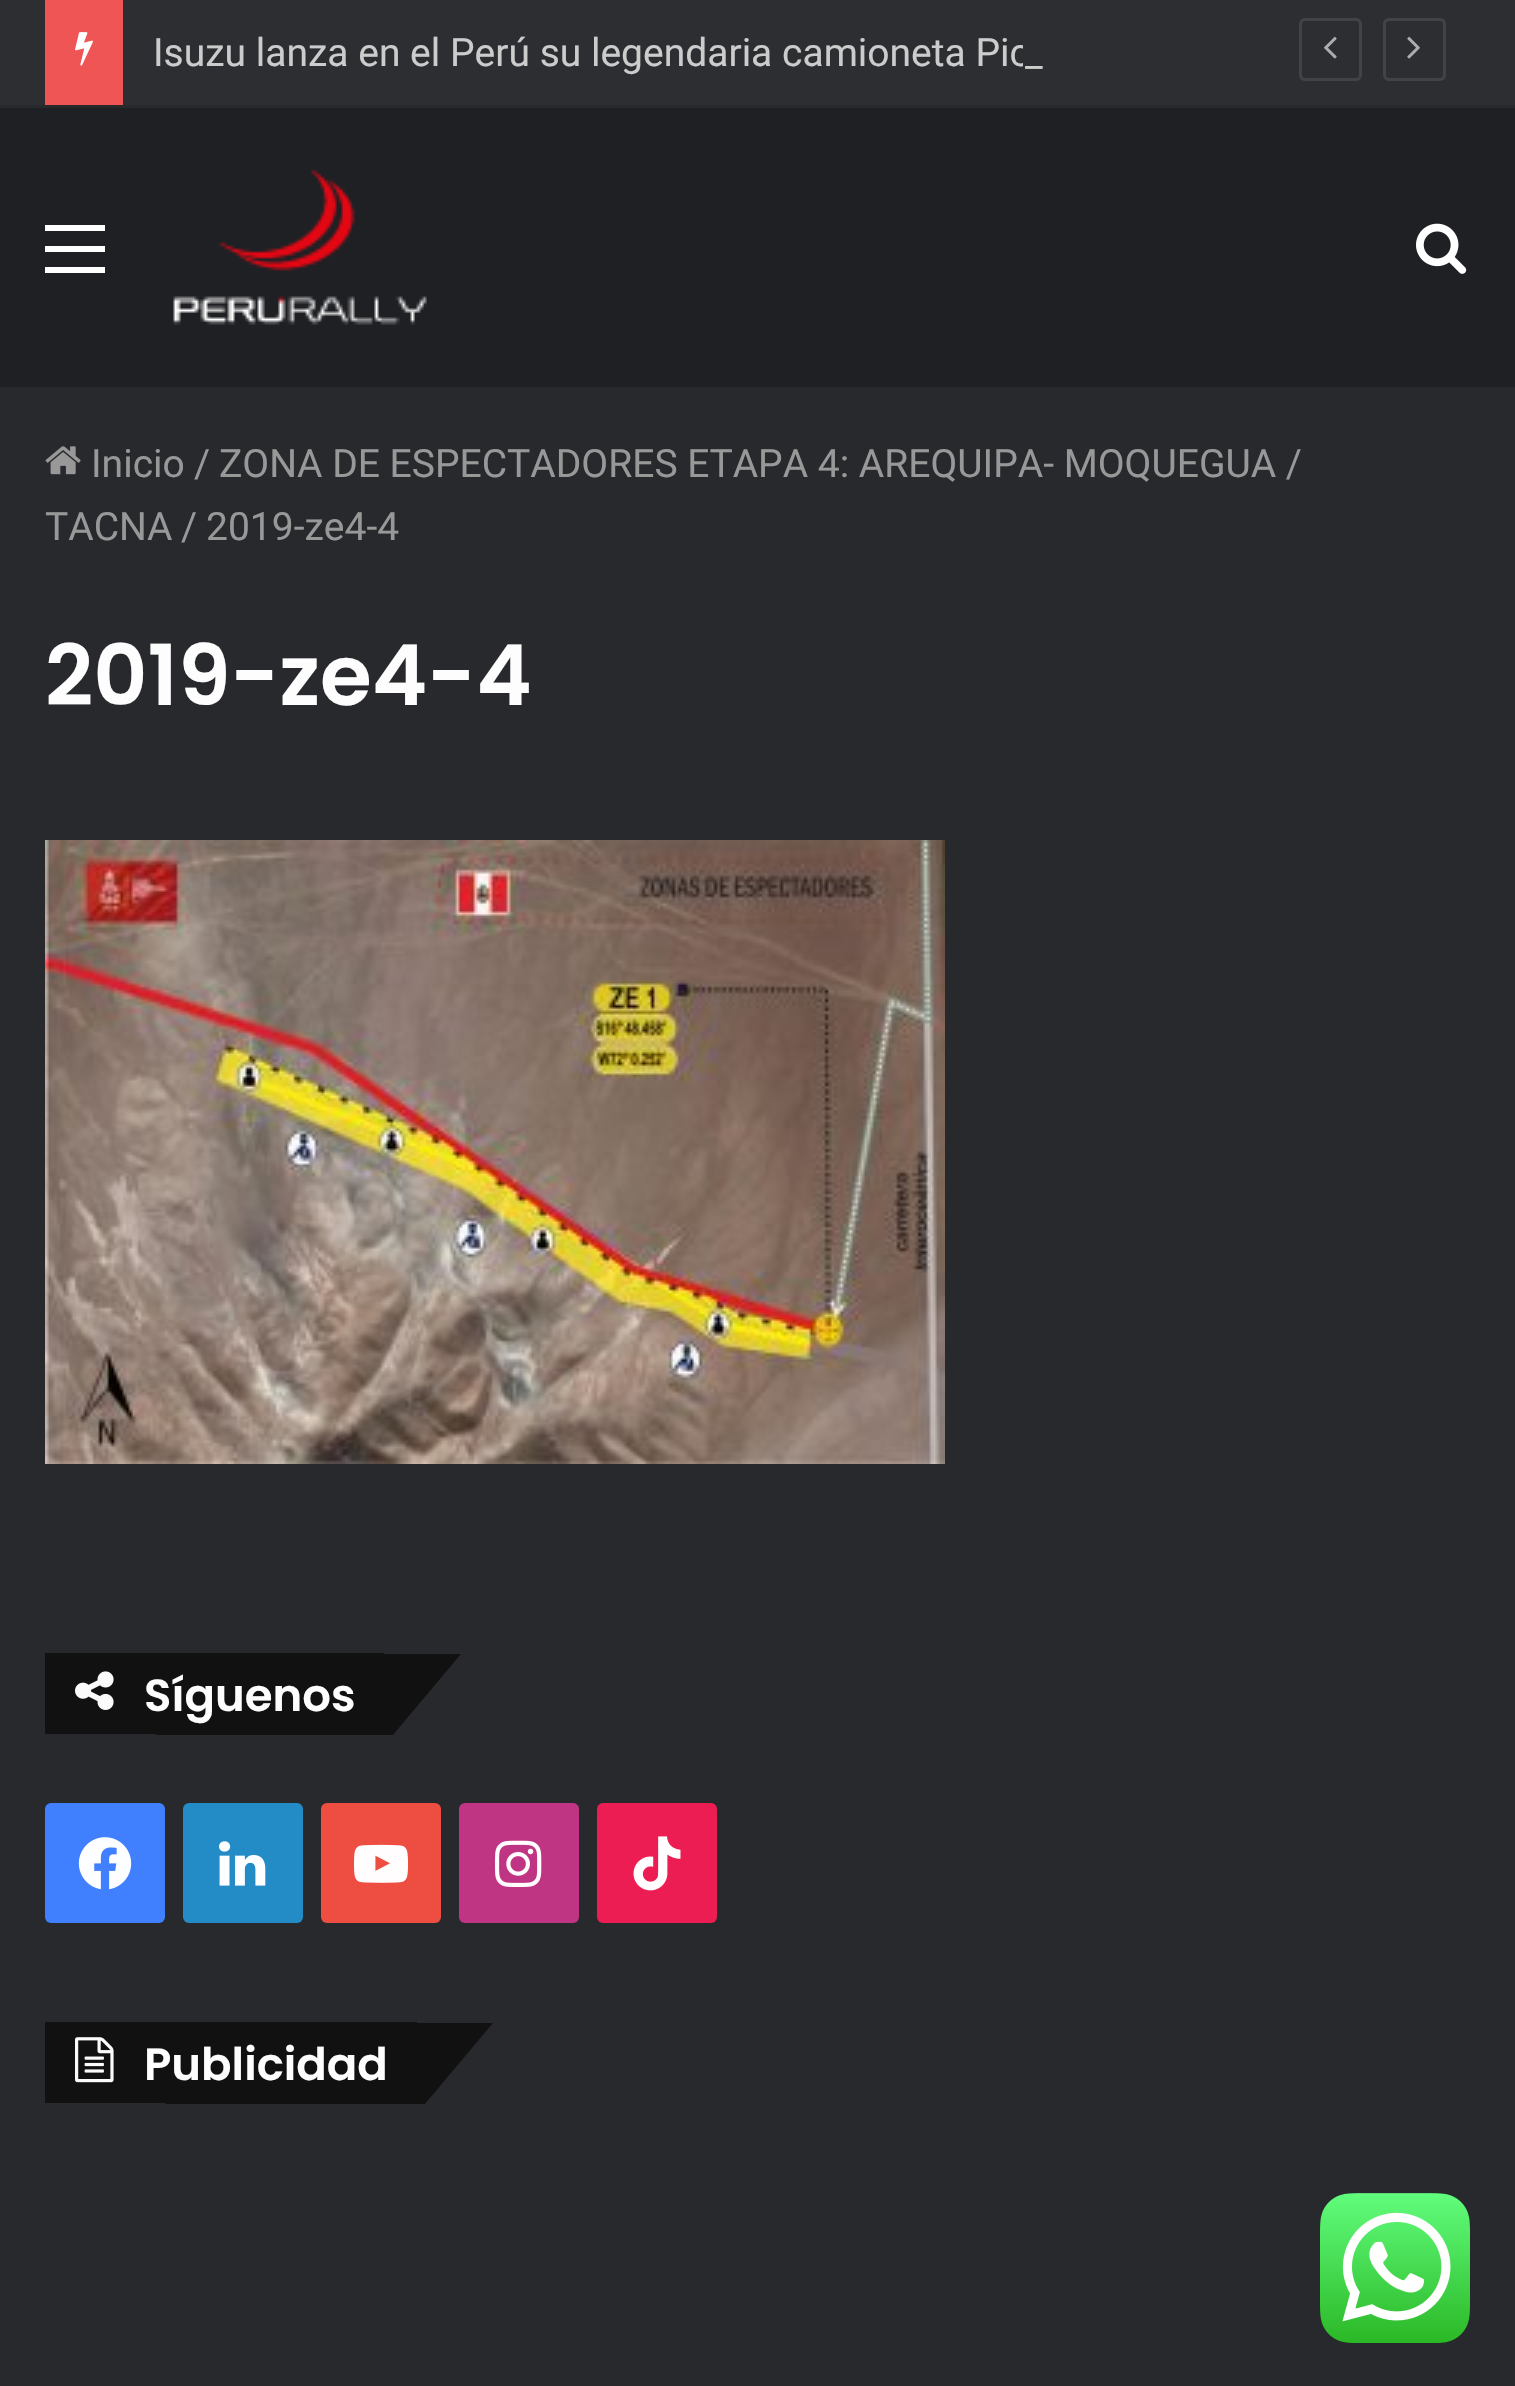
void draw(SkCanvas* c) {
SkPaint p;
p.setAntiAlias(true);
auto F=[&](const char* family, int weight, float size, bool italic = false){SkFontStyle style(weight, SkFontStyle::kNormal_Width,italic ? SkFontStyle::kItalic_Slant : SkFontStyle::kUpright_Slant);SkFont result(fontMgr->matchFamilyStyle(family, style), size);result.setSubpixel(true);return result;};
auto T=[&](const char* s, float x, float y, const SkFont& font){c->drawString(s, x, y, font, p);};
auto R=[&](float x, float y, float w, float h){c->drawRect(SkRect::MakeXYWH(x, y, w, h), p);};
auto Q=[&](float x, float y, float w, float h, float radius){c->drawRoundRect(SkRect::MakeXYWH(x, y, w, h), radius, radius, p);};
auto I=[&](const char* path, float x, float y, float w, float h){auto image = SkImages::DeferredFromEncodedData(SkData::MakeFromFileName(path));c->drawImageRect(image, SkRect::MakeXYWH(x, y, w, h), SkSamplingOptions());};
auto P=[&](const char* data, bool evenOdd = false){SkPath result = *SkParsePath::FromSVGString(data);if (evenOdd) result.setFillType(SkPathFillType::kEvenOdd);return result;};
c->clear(0xff27292d);
p.setColor(0xff2c2e32);
R(0,0,1515,105);
p.setColor(0xfff05555);
R(45,0,78,105);
I("1.png",75,32,18,34);
auto f1 = F("Roboto",400,39);
p.setColor(0xffcccccc);
T("Isuzu lanza en el Perú su legendaria camioneta Pic",153,66,f1);
p.setColor(0xff2c2e32);
R(1023,45,6,21);
p.setColor(0xffcccccc);
T("_",1025,66,f1);
p.setStroke(true);
p.setStrokeWidth(3);
p.setColor(0xff414347);
c->drawRoundRect(SkRect::MakeXYWH(1300.5,19.5,60,60),4.5,4.5,p);
I("2.png",1324,36,13,23);
c->drawRoundRect(SkRect::MakeXYWH(1384.5,19.5,60,60),4.5,4.5,p);
I("3.png",1407,36,13,23);
p.setStroke(false);
p.setColor(0xff1f2024);
R(0,108,1515,279);
p.setColor(0xffffffff);
R(45,246,60,6);
R(45,225,60,6);
R(45,267,60,6);
I("4.png",173,168,254,157);
I("5.png",1416,223,51,51);
I("6.png",45,446,36,29);
p.setColor(0xff989898);
T("Inicio",91,477,f1);
T("/",194,477,f1);
T("ZONA DE ESPECTADORES ETAPA 4: AREQUIPA- MOQUEGUA /",219,477,f1);
T("TACNA",45,540,f1);
T("/",181,540,f1);
T("2019-ze4-4",206,540,f1);
auto f2 = F("Poppins",600,84);
p.setColor(0xfffdfdfd);
T("2019-ze4-4",45,705,f2);
I("7.png",45,840,900,624);
p.setColor(0xff111112);
R(45,1653,339,81);
c->drawPath(P("M223 1654h238l-68 81h-238z"),p);
I("8.png",75,1671,39,39);
auto f3 = F("Poppins",600,45);
p.setColor(0xfffdfdfd);
T("Síguenos",144,1711,f3);
p.setColor(0xff407ffd);
Q(45,1803,120,120,6);
I("9.png",78,1837,54,53);
p.setColor(0xff238bc6);
Q(183,1803,120,120,6);
I("10.png",219,1841,47,45);
p.setColor(0xffed4e41);
Q(321,1803,120,120,6);
I("11.png",354,1844,54,39);
p.setColor(0xffbf3583);
Q(459,1803,120,120,6);
I("12.png",495,1840,47,47);
p.setColor(0xffec1d52);
Q(597,1803,120,120,6);
I("13.png",633,1836,48,55);
p.setColor(0xff111112);
R(45,2022,372,81);
c->drawPath(P("M233 2023h260l-68 81h-260z"),p);
I("14.png",75,2037,39,46);
p.setColor(0xfffdfdfd);
T("Publicidad",144,2080,f3);
I("15.png",1320,2193,150,150);
}
